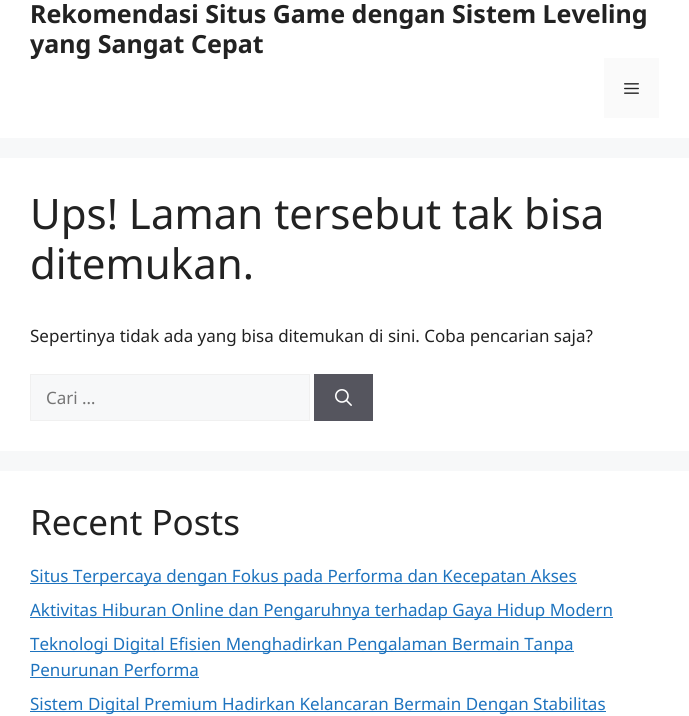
#include <cairo.h>
#include <math.h>
#include <stddef.h>


static void rgb(cairo_t *cr, int r, int g, int b)
{
	cairo_set_source_rgb(cr, r / 255.0, g / 255.0, b / 255.0);
}

static void face(cairo_t *cr, const char *family, double size, int italic, int bold)
{
	cairo_select_font_face(cr, family, italic ? CAIRO_FONT_SLANT_ITALIC : CAIRO_FONT_SLANT_NORMAL,
		bold ? CAIRO_FONT_WEIGHT_BOLD : CAIRO_FONT_WEIGHT_NORMAL);
	cairo_set_font_size(cr, size);
}

static void label(cairo_t *cr, double x, double y, const char *s)
{
	cairo_move_to(cr, x, y);
	cairo_show_text(cr, s);
}

static void rect(cairo_t *cr, double x, double y, double w, double h)
{
	cairo_rectangle(cr, x, y, w, h);
	cairo_fill(cr);
}

static void image(cairo_t *cr, const char *path, double x, double y, double w, double h)
{
	cairo_surface_t *image = cairo_image_surface_create_from_png(path);
	cairo_save(cr);
	cairo_set_source_surface(cr, image, x, y);
	cairo_rectangle(cr, x, y, w, h);
	cairo_fill(cr);
	cairo_restore(cr);
	cairo_surface_destroy(image);
}

static void draw(cairo_t *cr) {
	rgb(cr, 247, 248, 249);
	cairo_paint(cr);
	rgb(cr, 255, 255, 255);
	rect(cr, 0, 0, 689, 138);
	face(cr, "Noto Sans", 25, 0, 1);
	rgb(cr, 34, 34, 34);
	label(cr, 30, 23, "Rekomendasi Situs Game dengan Sistem Leveling");
	label(cr, 30, 53, "yang Sangat Cepat");
	rgb(cr, 250, 250, 250);
	rect(cr, 604, 58, 55, 60);
	image(cr, "image0.png", 624, 83, 15, 11);
	rgb(cr, 255, 255, 255);
	rect(cr, 0, 158, 689, 293);
	face(cr, "Noto Sans", 42, 0, 0);
	rgb(cr, 34, 34, 34);
	label(cr, 30, 229, "Ups! Laman tersebut tak bisa");
	label(cr, 30, 279, "ditemukan.");
	face(cr, "Noto Sans", 17, 0, 0);
	label(cr, 30, 342, "Sepertinya tidak ada yang bisa ditemukan di sini. Coba pencarian saja?");
	rgb(cr, 247, 248, 249);
	cairo_rectangle(cr, 30.5, 374.5, 279, 46);
	cairo_fill_preserve(cr);
	rgb(cr, 240, 240, 240);
	cairo_set_line_width(cr, 1);
	cairo_stroke(cr);
	rgb(cr, 117, 117, 117);
	label(cr, 46, 404, "Cari …");
	rgb(cr, 85, 85, 94);
	rect(cr, 314, 374, 59, 47);
	image(cr, "image1.png", 335, 389, 17, 17);
	rgb(cr, 255, 255, 255);
	rect(cr, 0, 471, 689, 245);
	face(cr, "Noto Sans", 35, 0, 0);
	rgb(cr, 34, 34, 34);
	label(cr, 30, 535, "Recent Posts");
	rgb(cr, 30, 115, 190);
	rect(cr, 30, 583, 547, 1);
	face(cr, "Noto Sans", 17, 0, 0);
	label(cr, 30, 582, "Situs Terpercaya dengan Fokus pada Performa dan Kecepatan Akses");
	rect(cr, 30, 617, 583, 1);
	label(cr, 30, 616, "Aktivitas Hiburan Online dan Pengaruhnya terhadap Gaya Hidup Modern");
	rect(cr, 30, 651, 544, 1);
	label(cr, 30, 650, "Teknologi Digital Efisien Menghadirkan Pengalaman Bermain Tanpa");
	label(cr, 30, 676, "Penurunan Performa");
	rect(cr, 30, 677, 169, 1);
	rect(cr, 30, 711, 576, 1);
	label(cr, 30, 710, "Sistem Digital Premium Hadirkan Kelancaran Bermain Dengan Stabilitas");
}

int main(void) {
	cairo_surface_t *surface = cairo_image_surface_create(CAIRO_FORMAT_RGB24, 689, 716);
	cairo_t *cr = cairo_create(surface);
	cairo_font_options_t *options = cairo_font_options_create();
	cairo_font_options_set_hint_metrics(options, CAIRO_HINT_METRICS_OFF);
	cairo_font_options_set_hint_style(options, CAIRO_HINT_STYLE_NONE);
	cairo_set_font_options(cr, options);
	cairo_set_miter_limit(cr, 4);
	draw(cr);
	cairo_surface_write_to_png(surface, "render.png");
	cairo_font_options_destroy(options);
	cairo_destroy(cr);
	cairo_surface_destroy(surface);
	return 0;
}
